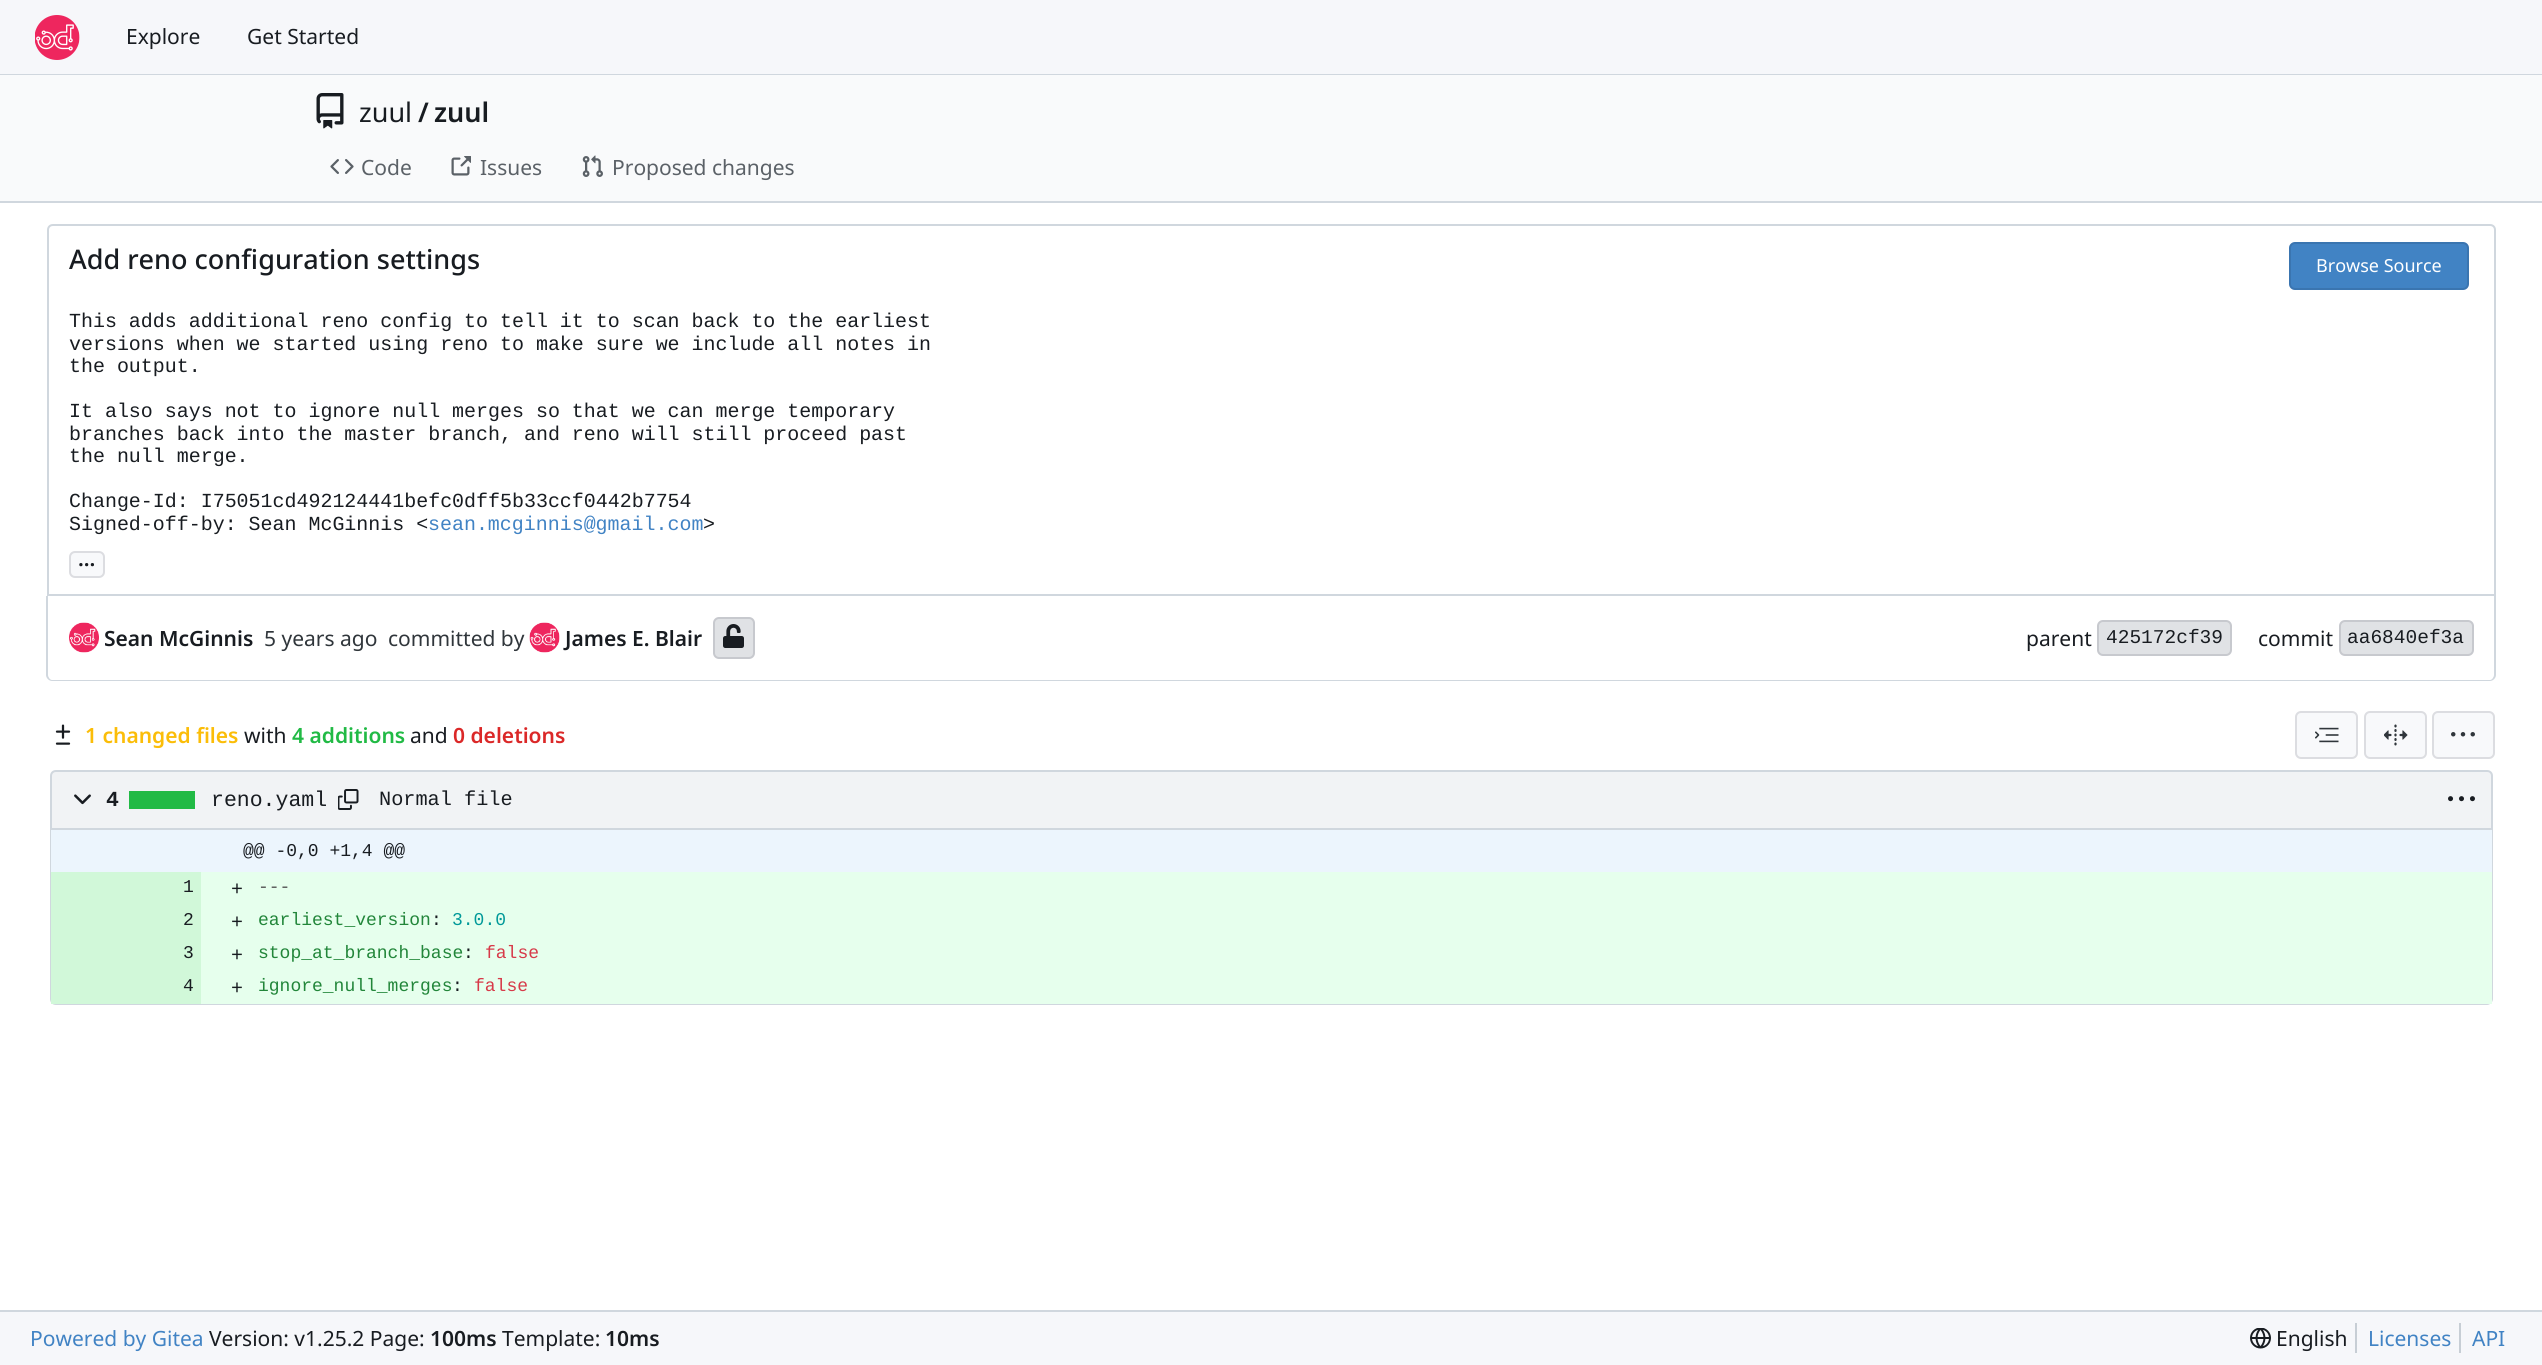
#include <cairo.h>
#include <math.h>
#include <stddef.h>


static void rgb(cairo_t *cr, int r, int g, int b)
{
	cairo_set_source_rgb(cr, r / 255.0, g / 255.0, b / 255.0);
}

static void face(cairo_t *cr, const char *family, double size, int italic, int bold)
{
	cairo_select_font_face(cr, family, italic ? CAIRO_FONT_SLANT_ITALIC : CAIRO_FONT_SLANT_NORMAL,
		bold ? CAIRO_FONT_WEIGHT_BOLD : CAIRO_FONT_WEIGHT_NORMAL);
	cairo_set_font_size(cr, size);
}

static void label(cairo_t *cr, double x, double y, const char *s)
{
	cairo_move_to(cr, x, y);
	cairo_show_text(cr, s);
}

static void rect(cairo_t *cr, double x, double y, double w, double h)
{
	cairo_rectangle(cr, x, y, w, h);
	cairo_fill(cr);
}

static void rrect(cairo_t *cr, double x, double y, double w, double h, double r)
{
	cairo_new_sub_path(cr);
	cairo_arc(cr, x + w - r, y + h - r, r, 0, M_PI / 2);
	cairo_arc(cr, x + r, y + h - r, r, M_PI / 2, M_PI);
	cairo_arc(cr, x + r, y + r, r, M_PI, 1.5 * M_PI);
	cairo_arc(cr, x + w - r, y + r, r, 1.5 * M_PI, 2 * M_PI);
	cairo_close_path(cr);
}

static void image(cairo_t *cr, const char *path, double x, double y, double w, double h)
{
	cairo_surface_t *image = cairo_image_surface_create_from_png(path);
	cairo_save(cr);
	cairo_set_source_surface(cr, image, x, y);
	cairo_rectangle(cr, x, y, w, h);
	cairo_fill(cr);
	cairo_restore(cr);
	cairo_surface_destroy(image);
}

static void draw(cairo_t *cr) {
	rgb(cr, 255, 255, 255);
	cairo_paint(cr);
	rgb(cr, 246, 247, 250);
	rect(cr, 0, 0, 2542, 74);
	rgb(cr, 208, 215, 222);
	rect(cr, 0, 74, 2542, 1);
	image(cr, "image0.png", 35, 15, 45, 45);
	face(cr, "Noto Sans", 21, 0, 0);
	rgb(cr, 24, 28, 33);
	label(cr, 126, 44, "Explore");
	label(cr, 247, 44, "Get Started");
	rgb(cr, 249, 250, 251);
	rect(cr, 0, 75, 2542, 126);
	image(cr, "image1.png", 316, 93, 28, 36);
	face(cr, "Noto Sans", 27, 0, 0);
	rgb(cr, 24, 28, 33);
	label(cr, 359, 122, "zuul");
	face(cr, "Noto Sans SemiBold", 27, 0, 0);
	label(cr, 418, 122, "/");
	label(cr, 434, 122, "zuul");
	image(cr, "image2.png", 330, 159, 24, 15);
	face(cr, "Noto Sans", 21, 0, 0);
	rgb(cr, 91, 97, 103);
	label(cr, 361, 175, "Code");
	image(cr, "image3.png", 451, 156, 20, 20);
	label(cr, 480, 175, "Issues");
	image(cr, "image4.png", 582, 155, 21, 22);
	label(cr, 612, 175, "Proposed changes");
	rgb(cr, 208, 215, 222);
	rect(cr, 0, 201, 2542, 2);
	cairo_new_path(cr);
	cairo_move_to(cr, 53, 225);
	cairo_line_to(cr, 2490, 225);
	cairo_curve_to(cr, 2493, 225, 2495, 227, 2495, 230);
	cairo_line_to(cr, 2495, 595);
	cairo_line_to(cr, 48, 595);
	cairo_line_to(cr, 48, 230);
	cairo_curve_to(cr, 48, 227, 50, 225, 53, 225);
	cairo_close_path(cr);
	cairo_stroke(cr);
	face(cr, "Noto Sans Medium", 27, 0, 0);
	rgb(cr, 24, 28, 33);
	label(cr, 69, 269, "Add reno configuration settings");
	rgb(cr, 65, 131, 196);
	rrect(cr, 2289, 242, 180, 48, 6);
	cairo_fill(cr);
	rrect(cr, 2290, 243, 178, 46, 5);
	cairo_set_source_rgba(cr, 0, 0, 0.09, 0.11);
	cairo_stroke(cr);
	face(cr, "Noto Sans", 18, 0, 0);
	rgb(cr, 255, 255, 255);
	label(cr, 2316, 272, "Browse Source");
	face(cr, "Liberation Mono", 19.95, 0, 0);
	rgb(cr, 24, 28, 33);
	label(cr, 69, 327, "This adds additional reno config to tell it to scan back to the earliest");
	label(cr, 69, 350, "versions when we started using reno to make sure we include all notes in");
	label(cr, 69, 372, "the output.");
	label(cr, 69, 417, "It also says not to ignore null merges so that we can merge temporary");
	label(cr, 69, 440, "branches back into the master branch, and reno will still proceed past");
	label(cr, 69, 462, "the null merge.");
	label(cr, 69, 507, "Change-Id: I75051cd492124441befc0dff5b33ccf0442b7754");
	label(cr, 69, 530, "Signed-off-by: Sean McGinnis <");
	rgb(cr, 65, 131, 196);
	label(cr, 428, 530, "sean.mcginnis@gmail.com");
	rgb(cr, 24, 28, 33);
	label(cr, 703, 530, ">");
	rgb(cr, 248, 249, 251);
	rrect(cr, 70, 552, 34, 25, 5);
	cairo_fill_preserve(cr);
	rgb(cr, 220, 221, 225);
	cairo_stroke(cr);
	face(cr, "Noto Sans SemiBold", 21, 0, 0);
	rgb(cr, 24, 28, 33);
	label(cr, 78, 566, "...");
	rgb(cr, 208, 215, 222);
	cairo_set_fill_rule(cr, CAIRO_FILL_RULE_EVEN_ODD);
	cairo_new_path(cr);
	cairo_move_to(cr, 46, 596);
	cairo_line_to(cr, 2496, 596);
	cairo_line_to(cr, 2496, 675);
	cairo_curve_to(cr, 2496, 678, 2493, 681, 2490, 681);
	cairo_line_to(cr, 52, 681);
	cairo_curve_to(cr, 49, 681, 46, 678, 46, 675);
	cairo_close_path(cr);
	cairo_move_to(cr, 48, 596);
	cairo_line_to(cr, 2494, 596);
	cairo_line_to(cr, 2494, 675);
	cairo_curve_to(cr, 2494, 677, 2492, 680, 2490, 680);
	cairo_line_to(cr, 52, 680);
	cairo_curve_to(cr, 50, 680, 48, 677, 48, 675);
	cairo_close_path(cr);
	cairo_fill(cr);
	image(cr, "image5.png", 69, 622, 30, 31);
	rgb(cr, 24, 28, 33);
	label(cr, 104, 646, "Sean McGinnis");
	face(cr, "Noto Sans", 21, 0, 0);
	rgb(cr, 48, 54, 59);
	label(cr, 264, 646, "5 years ago");
	label(cr, 388, 646, "committed by");
	image(cr, "image6.png", 529, 622, 31, 31);
	face(cr, "Noto Sans SemiBold", 21, 0, 0);
	rgb(cr, 24, 28, 33);
	label(cr, 565, 646, "James E. Blair");
	rgb(cr, 224, 226, 229);
	rrect(cr, 713, 617, 42, 42, 6);
	cairo_fill(cr);
	rrect(cr, 714, 618, 40, 40, 5);
	cairo_set_source_rgba(cr, 0, 0, 0.09, 0.11);
	cairo_stroke(cr);
	image(cr, "image7.png", 723, 624, 21, 24);
	face(cr, "Noto Sans", 21, 0, 0);
	rgb(cr, 24, 28, 33);
	label(cr, 2026, 646, "parent");
	rgb(cr, 224, 226, 229);
	rrect(cr, 2097, 620, 135, 36, 6);
	cairo_fill(cr);
	rrect(cr, 2098, 621, 133, 34, 5);
	cairo_set_source_rgba(cr, 0, 0, 0.09, 0.11);
	cairo_stroke(cr);
	face(cr, "Liberation Mono", 19.5, 0, 0);
	rgb(cr, 24, 28, 33);
	label(cr, 2106, 643, "425172cf39");
	face(cr, "Noto Sans", 21, 0, 0);
	label(cr, 2258, 646, "commit");
	rgb(cr, 224, 226, 229);
	rrect(cr, 2339, 620, 135, 36, 6);
	cairo_fill(cr);
	rrect(cr, 2340, 621, 133, 34, 5);
	cairo_set_source_rgba(cr, 0, 0, 0.09, 0.11);
	cairo_stroke(cr);
	face(cr, "Liberation Mono", 19.5, 0, 0);
	rgb(cr, 24, 28, 33);
	label(cr, 2347, 643, "aa6840ef3a");
	image(cr, "image8.png", 55, 724, 16, 21);
	face(cr, "Noto Sans SemiBold", 21, 0, 0);
	rgb(cr, 251, 189, 8);
	label(cr, 85, 743, "1 changed files");
	face(cr, "Noto Sans", 21, 0, 0);
	rgb(cr, 24, 28, 33);
	label(cr, 244, 743, "with");
	face(cr, "Noto Sans SemiBold", 21, 0, 0);
	rgb(cr, 33, 186, 69);
	label(cr, 292, 743, "4 additions");
	face(cr, "Noto Sans", 21, 0, 0);
	rgb(cr, 24, 28, 33);
	label(cr, 410, 743, "and");
	face(cr, "Noto Sans SemiBold", 21, 0, 0);
	rgb(cr, 219, 40, 40);
	label(cr, 453, 743, "0 deletions");
	rgb(cr, 248, 249, 251);
	rrect(cr, 2296, 712, 61, 46, 5);
	cairo_fill_preserve(cr);
	rgb(cr, 220, 221, 225);
	cairo_stroke(cr);
	image(cr, "image9.png", 2315, 727, 24, 16);
	rgb(cr, 248, 249, 251);
	rrect(cr, 2365, 712, 61, 46, 5);
	cairo_fill_preserve(cr);
	rgb(cr, 220, 221, 225);
	cairo_stroke(cr);
	image(cr, "image10.png", 2384, 724, 24, 22);
	rgb(cr, 248, 249, 251);
	rrect(cr, 2433, 712, 61, 46, 5);
	cairo_fill_preserve(cr);
	rgb(cr, 220, 221, 225);
	cairo_stroke(cr);
	image(cr, "image11.png", 2451, 732, 24, 5);
	rgb(cr, 241, 243, 245);
	cairo_new_path(cr);
	cairo_move_to(cr, 56, 771);
	cairo_line_to(cr, 2487, 771);
	cairo_curve_to(cr, 2490, 771, 2492, 773, 2492, 776);
	cairo_line_to(cr, 2492, 829);
	cairo_line_to(cr, 51, 829);
	cairo_line_to(cr, 51, 776);
	cairo_curve_to(cr, 51, 773, 53, 771, 56, 771);
	cairo_close_path(cr);
	cairo_fill_preserve(cr);
	rgb(cr, 208, 215, 222);
	cairo_stroke(cr);
	image(cr, "image12.png", 74, 794, 17, 11);
	face(cr, "Liberation Mono", 21.5, 0, 1);
	rgb(cr, 24, 28, 33);
	label(cr, 106, 806, "4");
	rgb(cr, 33, 186, 69);
	rect(cr, 129, 791, 66, 18);
	face(cr, "Liberation Mono", 21.5, 0, 0);
	rgb(cr, 24, 28, 33);
	label(cr, 211, 806, "reno.yaml");
	image(cr, "image13.png", 338, 789, 21, 21);
	face(cr, "Liberation Mono", 20.25, 0, 0);
	label(cr, 379, 805, "Normal file");
	image(cr, "image14.png", 2448, 796, 27, 6);
	rgb(cr, 208, 215, 222);
	cairo_new_path(cr);
	cairo_move_to(cr, 50, 830);
	cairo_line_to(cr, 2493, 830);
	cairo_line_to(cr, 2493, 999);
	cairo_curve_to(cr, 2493, 1002, 2490, 1005, 2487, 1005);
	cairo_line_to(cr, 56, 1005);
	cairo_curve_to(cr, 52, 1005, 50, 1002, 50, 999);
	cairo_close_path(cr);
	cairo_move_to(cr, 51, 830);
	cairo_line_to(cr, 2492, 830);
	cairo_line_to(cr, 2492, 999);
	cairo_curve_to(cr, 2492, 1001, 2489, 1004, 2487, 1004);
	cairo_line_to(cr, 56, 1004);
	cairo_curve_to(cr, 53, 1004, 51, 1001, 51, 999);
	cairo_close_path(cr);
	cairo_fill(cr);
	rgb(cr, 236, 245, 253);
	rect(cr, 51, 830, 2441, 42);
	face(cr, "Liberation Mono", 18, 0, 0);
	rgb(cr, 24, 28, 33);
	label(cr, 243, 856, "@@ -0,0 +1,4 @@");
	rgb(cr, 230, 255, 237);
	rect(cr, 201, 872, 2291, 132);
	rgb(cr, 209, 248, 217);
	rect(cr, 51, 872, 150, 33);
	rgb(cr, 24, 28, 33);
	label(cr, 183, 892, "1");
	face(cr, "Liberation Mono", 19.95, 0, 0);
	label(cr, 231, 895, "+");
	face(cr, "Liberation Mono", 18, 0, 0);
	rgb(cr, 85, 85, 85);
	label(cr, 258, 892, "---");
	rgb(cr, 209, 248, 217);
	rect(cr, 51, 905, 150, 33);
	rgb(cr, 34, 134, 58);
	label(cr, 258, 925, "earliest_version");
	rgb(cr, 24, 28, 33);
	label(cr, 431, 925, ":");
	rgb(cr, 0, 153, 153);
	label(cr, 452, 925, "3.0.0");
	rgb(cr, 24, 28, 33);
	label(cr, 183, 925, "2");
	face(cr, "Liberation Mono", 19.95, 0, 0);
	label(cr, 231, 928, "+");
	rgb(cr, 209, 248, 217);
	rect(cr, 51, 938, 150, 33);
	face(cr, "Liberation Mono", 18, 0, 0);
	rgb(cr, 34, 134, 58);
	label(cr, 258, 958, "stop_at_branch_base");
	rgb(cr, 24, 28, 33);
	label(cr, 463, 958, ":");
	rgb(cr, 215, 58, 73);
	label(cr, 485, 958, "false");
	rgb(cr, 24, 28, 33);
	label(cr, 183, 958, "3");
	face(cr, "Liberation Mono", 19.95, 0, 0);
	label(cr, 231, 961, "+");
	rgb(cr, 209, 248, 217);
	rect(cr, 51, 971, 150, 33);
	face(cr, "Liberation Mono", 18, 0, 0);
	rgb(cr, 34, 134, 58);
	label(cr, 258, 991, "ignore_null_merges");
	rgb(cr, 24, 28, 33);
	label(cr, 452, 991, ":");
	rgb(cr, 215, 58, 73);
	label(cr, 474, 991, "false");
	rgb(cr, 24, 28, 33);
	label(cr, 183, 991, "4");
	face(cr, "Liberation Mono", 19.95, 0, 0);
	label(cr, 231, 994, "+");
	rgb(cr, 246, 247, 250);
	rect(cr, 0, 1312, 2542, 53);
	rgb(cr, 208, 215, 222);
	rect(cr, 0, 1310, 2542, 2);
	face(cr, "Noto Sans", 21, 0, 0);
	rgb(cr, 65, 131, 196);
	label(cr, 30, 1346, "Powered by Gitea");
	rgb(cr, 24, 28, 33);
	label(cr, 209, 1346, "Version: v1.25.2 Page:");
	face(cr, "Noto Sans SemiBold", 21, 0, 0);
	label(cr, 430, 1346, "100ms");
	face(cr, "Noto Sans", 21, 0, 0);
	label(cr, 502, 1346, "Template:");
	face(cr, "Noto Sans SemiBold", 21, 0, 0);
	label(cr, 605, 1346, "10ms");
	image(cr, "image15.png", 2250, 1328, 21, 21);
	face(cr, "Noto Sans", 21, 0, 0);
	label(cr, 2276, 1346, "English");
	rgb(cr, 199, 206, 213);
	rect(cr, 2355, 1323, 2, 30);
	rgb(cr, 65, 131, 196);
	label(cr, 2368, 1346, "Licenses");
	rgb(cr, 199, 206, 213);
	rect(cr, 2459, 1323, 2, 30);
	rgb(cr, 65, 131, 196);
	label(cr, 2472, 1346, "API");
}

int main(void) {
	cairo_surface_t *surface = cairo_image_surface_create(CAIRO_FORMAT_RGB24, 2542, 1365);
	cairo_t *cr = cairo_create(surface);
	cairo_font_options_t *options = cairo_font_options_create();
	cairo_font_options_set_hint_metrics(options, CAIRO_HINT_METRICS_OFF);
	cairo_font_options_set_hint_style(options, CAIRO_HINT_STYLE_NONE);
	cairo_set_font_options(cr, options);
	cairo_set_miter_limit(cr, 4);
	draw(cr);
	cairo_surface_write_to_png(surface, "render.png");
	cairo_font_options_destroy(options);
	cairo_destroy(cr);
	cairo_surface_destroy(surface);
	return 0;
}
